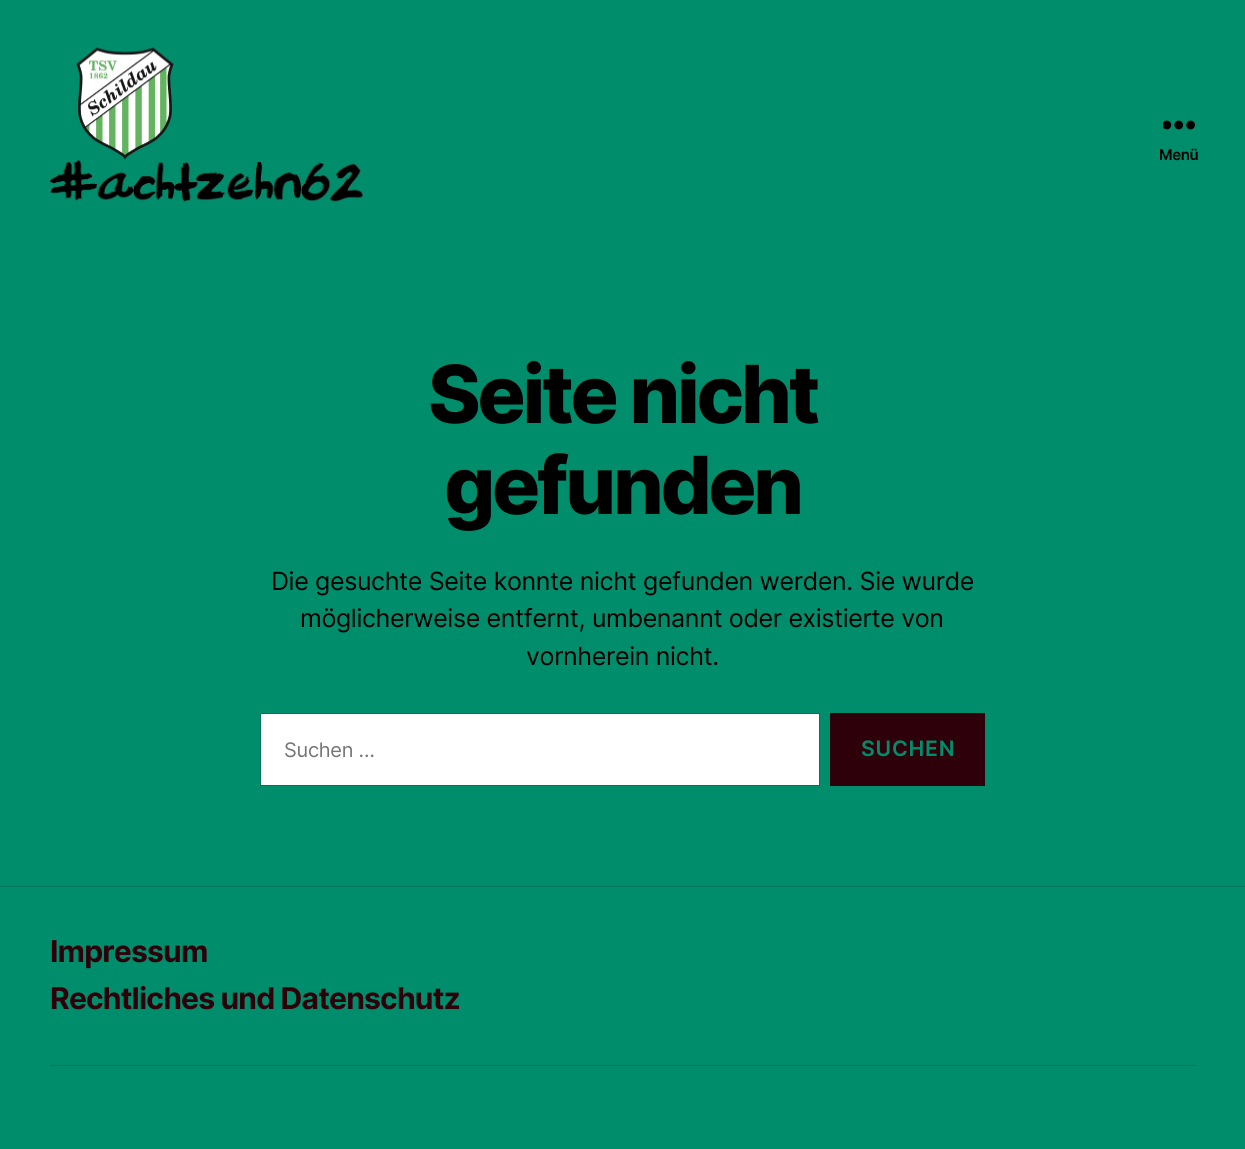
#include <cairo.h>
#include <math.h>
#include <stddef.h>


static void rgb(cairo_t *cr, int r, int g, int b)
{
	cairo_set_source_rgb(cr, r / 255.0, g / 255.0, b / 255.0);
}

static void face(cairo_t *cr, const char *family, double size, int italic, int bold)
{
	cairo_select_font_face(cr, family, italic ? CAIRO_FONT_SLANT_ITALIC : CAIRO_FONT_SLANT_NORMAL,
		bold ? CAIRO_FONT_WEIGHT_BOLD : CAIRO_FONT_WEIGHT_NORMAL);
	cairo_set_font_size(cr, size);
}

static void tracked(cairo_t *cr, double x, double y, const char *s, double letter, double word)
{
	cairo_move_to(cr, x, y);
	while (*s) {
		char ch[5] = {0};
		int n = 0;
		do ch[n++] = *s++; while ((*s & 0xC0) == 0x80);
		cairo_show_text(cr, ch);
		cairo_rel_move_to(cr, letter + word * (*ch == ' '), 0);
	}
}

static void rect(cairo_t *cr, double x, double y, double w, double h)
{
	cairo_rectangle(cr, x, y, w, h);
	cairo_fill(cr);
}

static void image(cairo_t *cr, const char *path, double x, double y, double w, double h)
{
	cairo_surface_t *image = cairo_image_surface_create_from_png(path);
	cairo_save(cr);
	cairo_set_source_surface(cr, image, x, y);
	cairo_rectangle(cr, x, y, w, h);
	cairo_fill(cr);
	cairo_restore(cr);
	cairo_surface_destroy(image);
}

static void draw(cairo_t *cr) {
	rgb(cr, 0, 141, 107);
	cairo_paint(cr);
	image(cr, "image0.png", 76, 47, 98, 113);
	image(cr, "image1.png", 50, 160, 313, 42);
	image(cr, "image2.png", 1163, 120, 32, 10);
	face(cr, "Inter SemiBold", 15, 0, 0);
	rgb(cr, 0, 0, 0);
	tracked(cr, 1159, 160, "Menü", -0.35, 0);
	face(cr, "Inter ExtraBold", 80, 0, 0);
	tracked(cr, 428, 423, "Seite nicht", -3.25, 0);
	tracked(cr, 444, 514, "gefunden", -3.25, 0);
	face(cr, "Inter", 25, 0, 0);
	tracked(cr, 271, 590, "Die gesuchte Seite konnte nicht gefunden werden. Sie wurde", -0.35, 0);
	tracked(cr, 300, 627, "möglicherweise entfernt, umbenannt oder existierte von", -0.35, 0);
	tracked(cr, 526, 665, "vornherein nicht.", -0.35, 0);
	rgb(cr, 255, 255, 255);
	cairo_rectangle(cr, 260.5, 713.5, 559, 72);
	cairo_fill_preserve(cr);
	rgb(cr, 0, 117, 89);
	cairo_set_line_width(cr, 1);
	cairo_stroke(cr);
	face(cr, "Inter", 20, 0, 0);
	rgb(cr, 117, 117, 117);
	tracked(cr, 284, 757, "Suchen …", -0.25, 0);
	rgb(cr, 45, 0, 10);
	rect(cr, 830, 713, 155, 73);
	face(cr, "Inter SemiBold", 21.25, 0, 0);
	rgb(cr, 0, 141, 107);
	tracked(cr, 861, 756, "SUCHEN", 0.75, 0);
	rgb(cr, 0, 117, 89);
	rect(cr, 0, 886, 1245, 1);
	rect(cr, 50, 1065, 1145, 1);
	face(cr, "Inter", 30, 0, 1);
	rgb(cr, 45, 0, 10);
	tracked(cr, 50, 962, "Impressum", -0.8, 0);
	tracked(cr, 50, 1009, "Rechtliches und Datenschutz", -0.8, 0);
}

int main(void) {
	cairo_surface_t *surface = cairo_image_surface_create(CAIRO_FORMAT_RGB24, 1245, 1149);
	cairo_t *cr = cairo_create(surface);
	cairo_font_options_t *options = cairo_font_options_create();
	cairo_font_options_set_hint_metrics(options, CAIRO_HINT_METRICS_OFF);
	cairo_font_options_set_hint_style(options, CAIRO_HINT_STYLE_NONE);
	cairo_set_font_options(cr, options);
	cairo_set_miter_limit(cr, 4);
	draw(cr);
	cairo_surface_write_to_png(surface, "render.png");
	cairo_font_options_destroy(options);
	cairo_destroy(cr);
	cairo_surface_destroy(surface);
	return 0;
}
